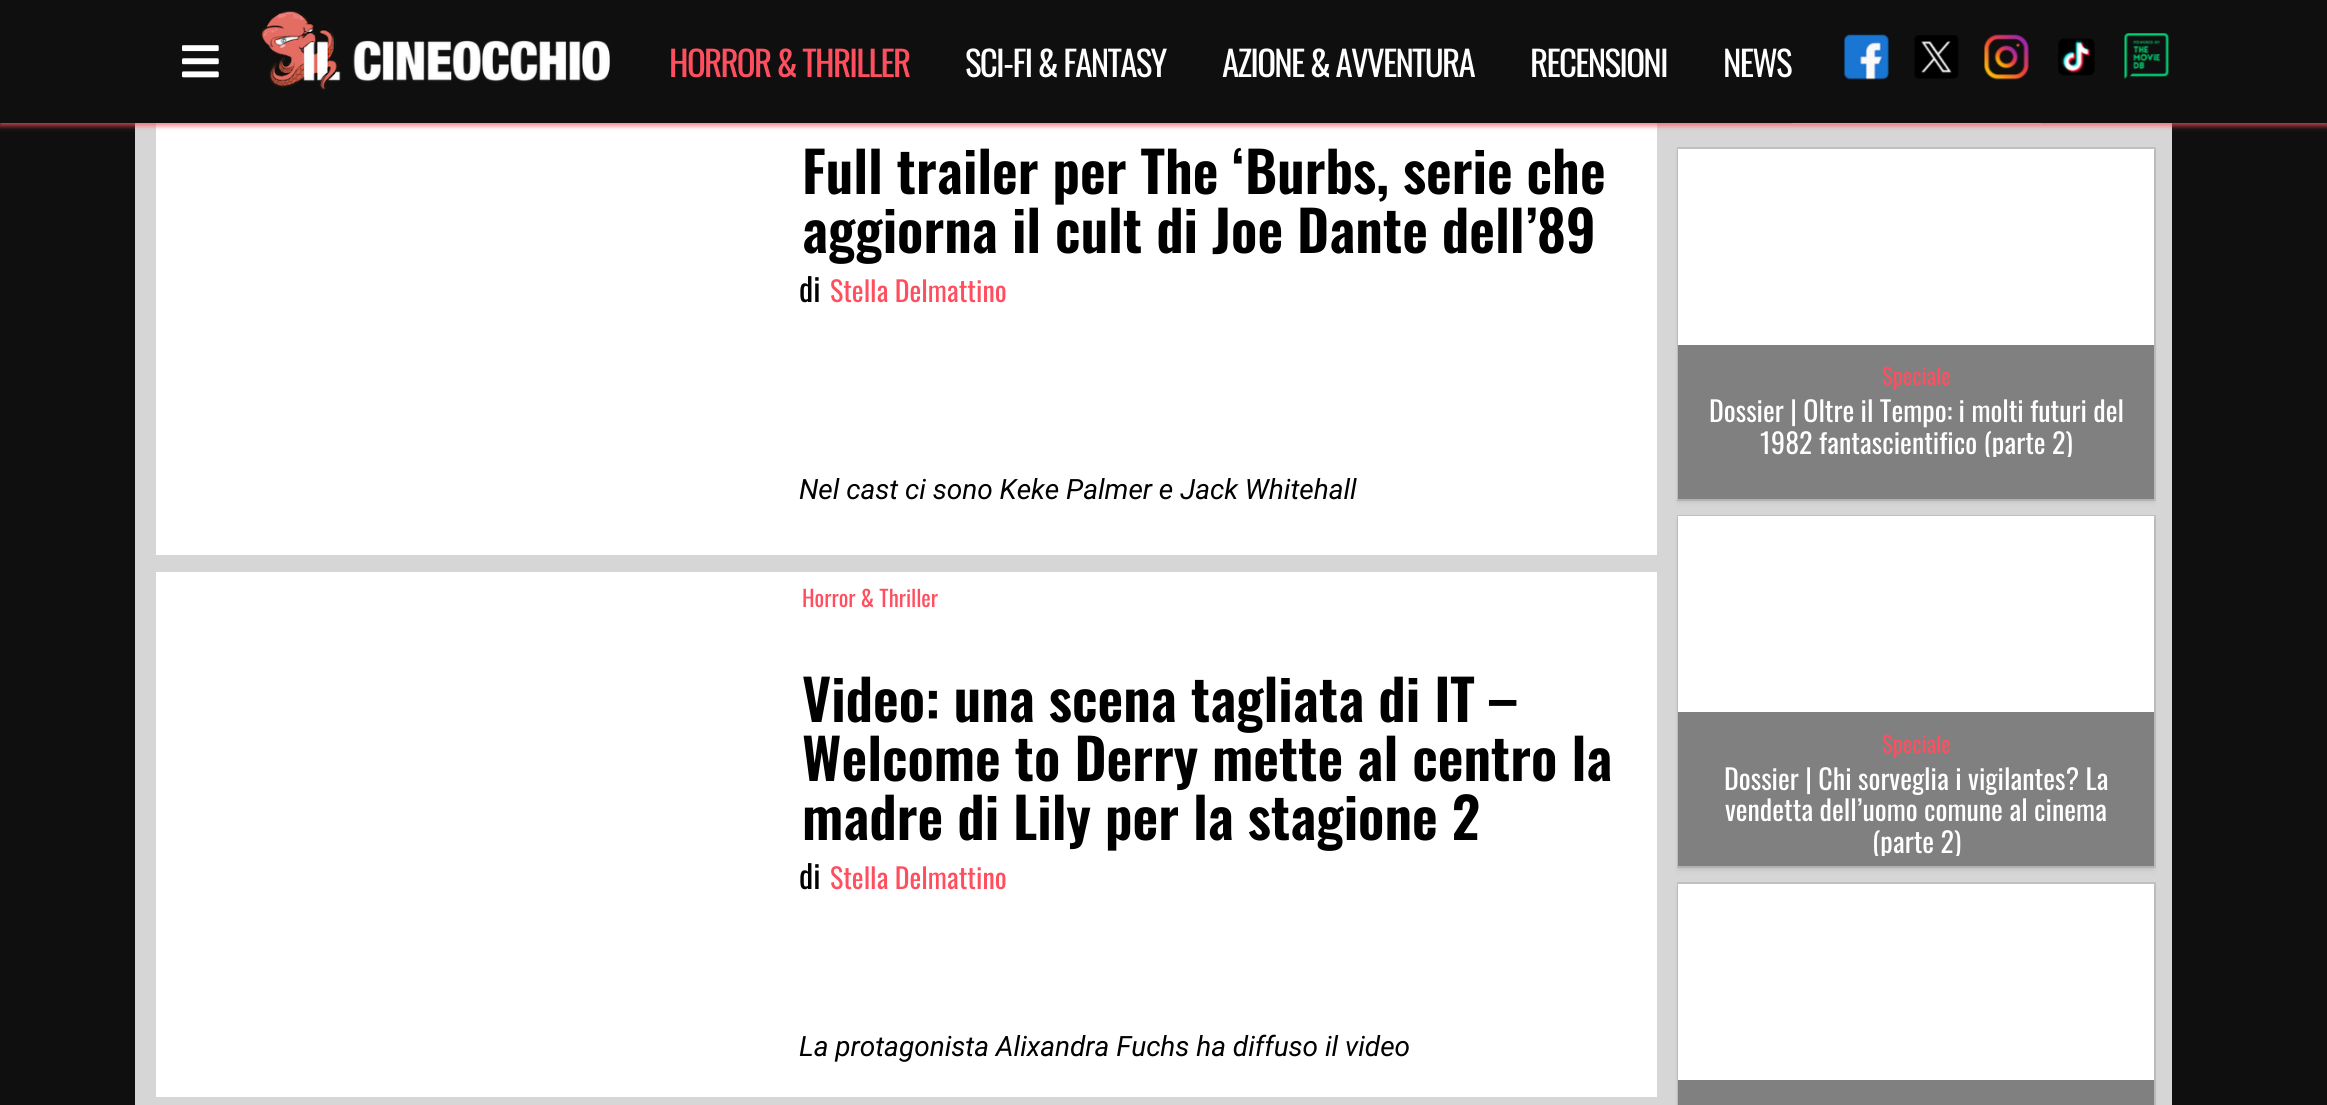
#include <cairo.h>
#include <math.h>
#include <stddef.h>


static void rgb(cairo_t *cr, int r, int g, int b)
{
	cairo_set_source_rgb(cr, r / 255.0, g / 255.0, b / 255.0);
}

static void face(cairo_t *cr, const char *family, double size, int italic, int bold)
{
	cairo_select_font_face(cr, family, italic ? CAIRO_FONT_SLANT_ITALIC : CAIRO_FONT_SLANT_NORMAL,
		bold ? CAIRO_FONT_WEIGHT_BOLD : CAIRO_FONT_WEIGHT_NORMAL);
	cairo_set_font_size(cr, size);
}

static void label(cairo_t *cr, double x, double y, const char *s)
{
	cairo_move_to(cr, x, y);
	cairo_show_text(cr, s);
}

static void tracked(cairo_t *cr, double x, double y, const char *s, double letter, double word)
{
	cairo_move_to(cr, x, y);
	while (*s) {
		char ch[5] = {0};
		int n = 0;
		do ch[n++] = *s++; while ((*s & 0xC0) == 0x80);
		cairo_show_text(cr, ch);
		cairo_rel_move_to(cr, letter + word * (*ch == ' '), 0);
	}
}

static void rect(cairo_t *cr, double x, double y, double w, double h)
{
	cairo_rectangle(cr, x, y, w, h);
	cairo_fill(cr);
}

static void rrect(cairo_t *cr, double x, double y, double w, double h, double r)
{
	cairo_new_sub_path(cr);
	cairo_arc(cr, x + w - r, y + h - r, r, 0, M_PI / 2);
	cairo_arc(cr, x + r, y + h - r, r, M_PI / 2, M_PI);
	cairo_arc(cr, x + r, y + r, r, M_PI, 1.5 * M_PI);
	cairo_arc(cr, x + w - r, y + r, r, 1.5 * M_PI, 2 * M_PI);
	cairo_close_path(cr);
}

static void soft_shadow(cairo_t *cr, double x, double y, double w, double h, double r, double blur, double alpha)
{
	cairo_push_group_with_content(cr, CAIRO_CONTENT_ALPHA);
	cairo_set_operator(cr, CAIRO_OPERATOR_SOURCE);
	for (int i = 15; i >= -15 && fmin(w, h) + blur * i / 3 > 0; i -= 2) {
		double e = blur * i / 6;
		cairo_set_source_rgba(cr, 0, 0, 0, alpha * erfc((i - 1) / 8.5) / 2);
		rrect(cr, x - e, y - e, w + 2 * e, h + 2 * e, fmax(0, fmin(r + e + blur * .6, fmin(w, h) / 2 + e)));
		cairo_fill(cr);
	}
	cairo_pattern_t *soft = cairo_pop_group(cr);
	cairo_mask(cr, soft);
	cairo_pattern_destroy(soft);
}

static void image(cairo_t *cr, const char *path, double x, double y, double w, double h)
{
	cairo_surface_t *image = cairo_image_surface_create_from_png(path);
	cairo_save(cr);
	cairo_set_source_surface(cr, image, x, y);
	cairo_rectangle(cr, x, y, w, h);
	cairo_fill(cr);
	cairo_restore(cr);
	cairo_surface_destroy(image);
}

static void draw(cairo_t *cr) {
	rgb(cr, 15, 15, 15);
	cairo_paint(cr);
	rgb(cr, 214, 214, 214);
	rect(cr, 135, 123, 2037, 982);
	rgb(cr, 255, 255, 255);
	rect(cr, 156, 123, 1501, 432);
	rect(cr, 1792, 123, 249, 1);
	rgb(cr, 255, 79, 95);
	soft_shadow(cr, 0, 4, 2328, 122, 0, 2.5, 0.75);
	rgb(cr, 15, 15, 15);
	rect(cr, 0, 0, 2327, 123);
	image(cr, "image0.png", 182, 45, 37, 33);
	image(cr, "image1.png", 260, 10, 350, 81);
	face(cr, "Oswald", 35, 0, 0);
	rgb(cr, 255, 79, 95);
	tracked(cr, 669, 77, "HORROR & THRILLER", -1.75, 0);
	rgb(cr, 255, 255, 255);
	tracked(cr, 965, 77, "SCI-FI & FANTASY", -1.75, 0);
	tracked(cr, 1222, 77, "AZIONE & AVVENTURA", -1.75, 0);
	tracked(cr, 1530, 77, "RECENSIONI", -1.75, 0);
	tracked(cr, 1723, 77, "NEWS", -1.75, 0);
	image(cr, "image2.png", 1844, 34, 45, 46);
	image(cr, "image3.png", 1914, 35, 45, 44);
	image(cr, "image4.png", 1984, 34, 45, 46);
	image(cr, "image5.png", 2058, 38, 37, 38);
	image(cr, "image6.png", 2124, 33, 45, 47);
	face(cr, "Oswald SemiBold", 56, 0, 0);
	rgb(cr, 0, 0, 0);
	label(cr, 802, 194, "Full trailer per The ‘Burbs, serie che");
	label(cr, 802, 253, "aggiorna il cult di Joe Dante dell’89");
	face(cr, "Oswald", 32, 0, 0);
	label(cr, 799, 302, "di");
	face(cr, "Oswald", 28, 0, 0);
	rgb(cr, 255, 79, 95);
	label(cr, 830, 302, "Stella Delmattino");
	face(cr, "Roboto", 28, 1, 0);
	rgb(cr, 0, 0, 0);
	label(cr, 799, 499, "Nel cast ci sono Keke Palmer e Jack Whitehall");
	rgb(cr, 255, 255, 255);
	rect(cr, 156, 572, 1501, 525);
	face(cr, "Oswald", 22.5, 0, 0);
	rgb(cr, 255, 79, 95);
	label(cr, 802, 607, "Horror & Thriller");
	face(cr, "Oswald SemiBold", 56, 0, 0);
	rgb(cr, 0, 0, 0);
	label(cr, 802, 722, "Video: una scena tagliata di IT –");
	label(cr, 802, 781, "Welcome to Derry mette al centro la");
	label(cr, 802, 840, "madre di Lily per la stagione 2");
	face(cr, "Oswald", 32, 0, 0);
	label(cr, 799, 889, "di");
	face(cr, "Oswald", 28, 0, 0);
	rgb(cr, 255, 79, 95);
	label(cr, 830, 889, "Stella Delmattino");
	face(cr, "Roboto", 28, 1, 0);
	rgb(cr, 0, 0, 0);
	label(cr, 799, 1056, "La protagonista Alixandra Fuchs ha diffuso il video");
	cairo_rectangle(cr, 1678, 148, 477, 352);
	rgb(cr, 193, 193, 193);
	cairo_stroke(cr);
	rgb(cr, 0, 0, 0);
	soft_shadow(cr, 1678, 152, 476, 350, 0, 2.5, 0.1);
	rgb(cr, 255, 255, 255);
	rect(cr, 1678, 149, 476, 196);
	rgb(cr, 128, 128, 128);
	rect(cr, 1678, 345, 476, 154);
	face(cr, "Oswald", 22.5, 0, 0);
	rgb(cr, 255, 79, 95);
	label(cr, 1882, 385, "Speciale");
	face(cr, "Oswald", 28, 0, 0);
	rgb(cr, 255, 255, 255);
	label(cr, 1709, 422, "Dossier | Oltre il Tempo: i molti futuri del");
	cairo_save(cr);
	cairo_rectangle(cr, 1706, 394, 420, 63);
	cairo_clip(cr);
	label(cr, 1760, 454, "1982 fantascientifico (parte 2)");
	cairo_restore(cr);
	cairo_rectangle(cr, 1678, 516, 477, 351);
	rgb(cr, 193, 193, 193);
	cairo_stroke(cr);
	rgb(cr, 0, 0, 0);
	soft_shadow(cr, 1678, 520, 476, 350, 0, 2.5, 0.1);
	rgb(cr, 255, 255, 255);
	rect(cr, 1678, 516, 476, 196);
	rgb(cr, 128, 128, 128);
	rect(cr, 1678, 712, 476, 154);
	face(cr, "Oswald", 22.5, 0, 0);
	rgb(cr, 255, 79, 95);
	label(cr, 1882, 753, "Speciale");
	face(cr, "Oswald", 28, 0, 0);
	rgb(cr, 255, 255, 255);
	label(cr, 1724, 790, "Dossier | Chi sorveglia i vigilantes? La");
	label(cr, 1725, 821, "vendetta dell’uomo comune al cinema");
	cairo_save(cr);
	cairo_rectangle(cr, 1706, 761, 420, 95);
	cairo_clip(cr);
	label(cr, 1872, 853, "(parte 2)");
	cairo_restore(cr);
	cairo_rectangle(cr, 1678, 883, 477, 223);
	rgb(cr, 193, 193, 193);
	cairo_stroke(cr);
	rgb(cr, 0, 0, 0);
	soft_shadow(cr, 1678, 887, 476, 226, 0, 2.5, 0.1);
	rgb(cr, 255, 255, 255);
	rect(cr, 1678, 884, 476, 196);
	rgb(cr, 128, 128, 128);
	rect(cr, 1678, 1080, 476, 25);
}

int main(void) {
	cairo_surface_t *surface = cairo_image_surface_create(CAIRO_FORMAT_RGB24, 2327, 1105);
	cairo_t *cr = cairo_create(surface);
	cairo_font_options_t *options = cairo_font_options_create();
	cairo_font_options_set_hint_metrics(options, CAIRO_HINT_METRICS_OFF);
	cairo_font_options_set_hint_style(options, CAIRO_HINT_STYLE_NONE);
	cairo_set_font_options(cr, options);
	cairo_set_miter_limit(cr, 4);
	draw(cr);
	cairo_surface_write_to_png(surface, "render.png");
	cairo_font_options_destroy(options);
	cairo_destroy(cr);
	cairo_surface_destroy(surface);
	return 0;
}
